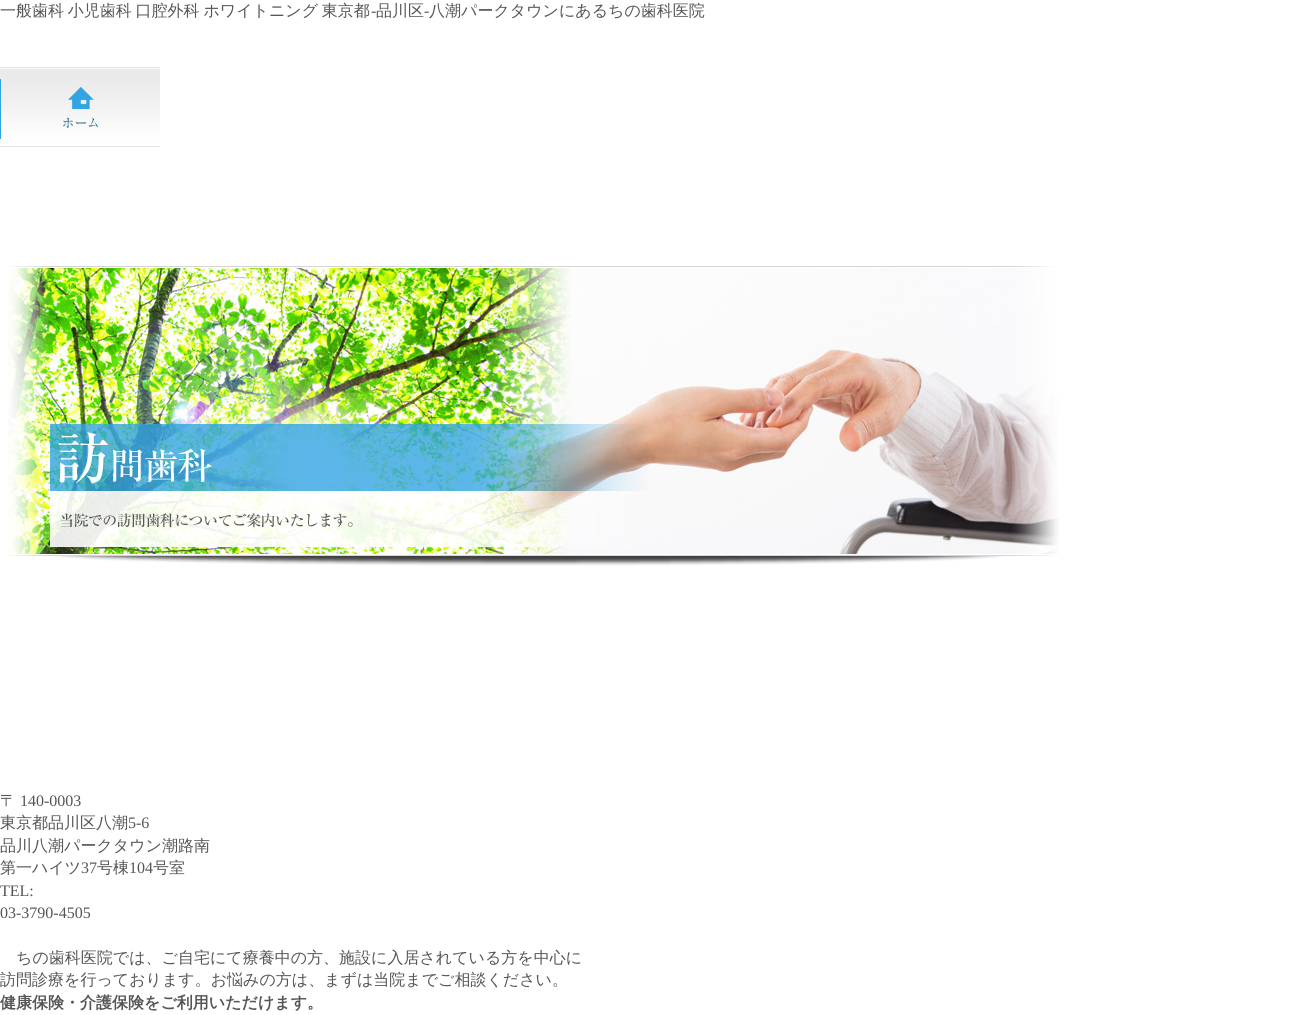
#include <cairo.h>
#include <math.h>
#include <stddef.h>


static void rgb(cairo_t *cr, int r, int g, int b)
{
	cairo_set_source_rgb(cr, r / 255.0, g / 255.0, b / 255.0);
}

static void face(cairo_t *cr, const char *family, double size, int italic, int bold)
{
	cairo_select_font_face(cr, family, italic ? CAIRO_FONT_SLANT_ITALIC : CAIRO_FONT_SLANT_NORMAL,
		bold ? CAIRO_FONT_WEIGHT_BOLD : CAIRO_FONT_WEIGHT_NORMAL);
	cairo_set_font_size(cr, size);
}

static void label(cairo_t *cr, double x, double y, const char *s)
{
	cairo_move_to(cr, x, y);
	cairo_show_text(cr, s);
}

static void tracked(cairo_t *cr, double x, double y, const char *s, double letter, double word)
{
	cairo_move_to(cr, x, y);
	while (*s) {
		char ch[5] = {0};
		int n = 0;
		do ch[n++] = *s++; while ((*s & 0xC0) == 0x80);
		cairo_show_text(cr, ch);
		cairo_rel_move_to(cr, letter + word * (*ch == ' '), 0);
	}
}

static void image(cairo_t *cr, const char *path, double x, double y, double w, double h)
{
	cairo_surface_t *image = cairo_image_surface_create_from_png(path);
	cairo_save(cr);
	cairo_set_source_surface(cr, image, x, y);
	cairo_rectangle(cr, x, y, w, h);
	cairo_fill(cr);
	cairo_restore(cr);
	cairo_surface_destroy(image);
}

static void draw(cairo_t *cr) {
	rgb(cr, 255, 255, 255);
	cairo_paint(cr);
	face(cr, "WenQuanYi Zen Hei Medium", 16, 0, 0);
	rgb(cr, 85, 85, 85);
	tracked(cr, 0, 16, "一般歯科 小児歯科 口腔外科 ホワイトニング 東京都", 0, -1);
	face(cr, "Liberation Serif", 16, 0, 0);
	label(cr, 371, 16, "-");
	face(cr, "WenQuanYi Zen Hei Medium", 16, 0, 0);
	label(cr, 376, 16, "品川区");
	face(cr, "Liberation Serif", 16, 0, 0);
	label(cr, 424, 16, "-");
	face(cr, "WenQuanYi Zen Hei Medium", 16, 0, 0);
	label(cr, 429, 16, "八潮パークタウンにあるちの歯科医院");
	image(cr, "image0.png", 0, 67, 160, 80);
	image(cr, "image1.png", 8, 266, 1051, 300);
	label(cr, 0, 806, "〒");
	face(cr, "Liberation Serif", 16, 0, 0);
	label(cr, 20, 806, "140-0003");
	face(cr, "WenQuanYi Zen Hei Medium", 16, 0, 0);
	label(cr, 0, 828, "東京都品川区八潮");
	face(cr, "Liberation Serif", 16, 0, 0);
	label(cr, 128, 828, "5-6");
	face(cr, "WenQuanYi Zen Hei Medium", 16, 0, 0);
	label(cr, 0, 851, "品川八潮パークタウン潮路南");
	label(cr, 0, 873, "第一ハイツ");
	face(cr, "Liberation Serif", 16, 0, 0);
	label(cr, 81, 873, "37");
	face(cr, "WenQuanYi Zen Hei Medium", 16, 0, 0);
	label(cr, 97, 873, "号棟");
	face(cr, "Liberation Serif", 16, 0, 0);
	label(cr, 129, 873, "104");
	face(cr, "WenQuanYi Zen Hei Medium", 16, 0, 0);
	label(cr, 153, 873, "号室");
	face(cr, "Liberation Serif", 16, 0, 0);
	label(cr, 0, 896, "TEL:");
	label(cr, 0, 918, "03-3790-4505");
	face(cr, "WenQuanYi Zen Hei Medium", 16, 0, 0);
	label(cr, 16, 963, "ちの歯科医院では、ご自宅にて療養中の方、施設に入居されている方を中心に");
	label(cr, 0, 985, "訪問診療を行っております。お悩みの方は、まずは当院までご相談ください。");
	face(cr, "WenQuanYi Zen Hei", 16, 0, 1);
	label(cr, 0, 1008, "健康保険・介護保険をご利用いただけます。");
}

int main(void) {
	cairo_surface_t *surface = cairo_image_surface_create(CAIRO_FORMAT_RGB24, 1305, 1015);
	cairo_t *cr = cairo_create(surface);
	cairo_font_options_t *options = cairo_font_options_create();
	cairo_font_options_set_hint_metrics(options, CAIRO_HINT_METRICS_OFF);
	cairo_font_options_set_hint_style(options, CAIRO_HINT_STYLE_NONE);
	cairo_set_font_options(cr, options);
	cairo_set_miter_limit(cr, 4);
	draw(cr);
	cairo_surface_write_to_png(surface, "render.png");
	cairo_font_options_destroy(options);
	cairo_destroy(cr);
	cairo_surface_destroy(surface);
	return 0;
}
